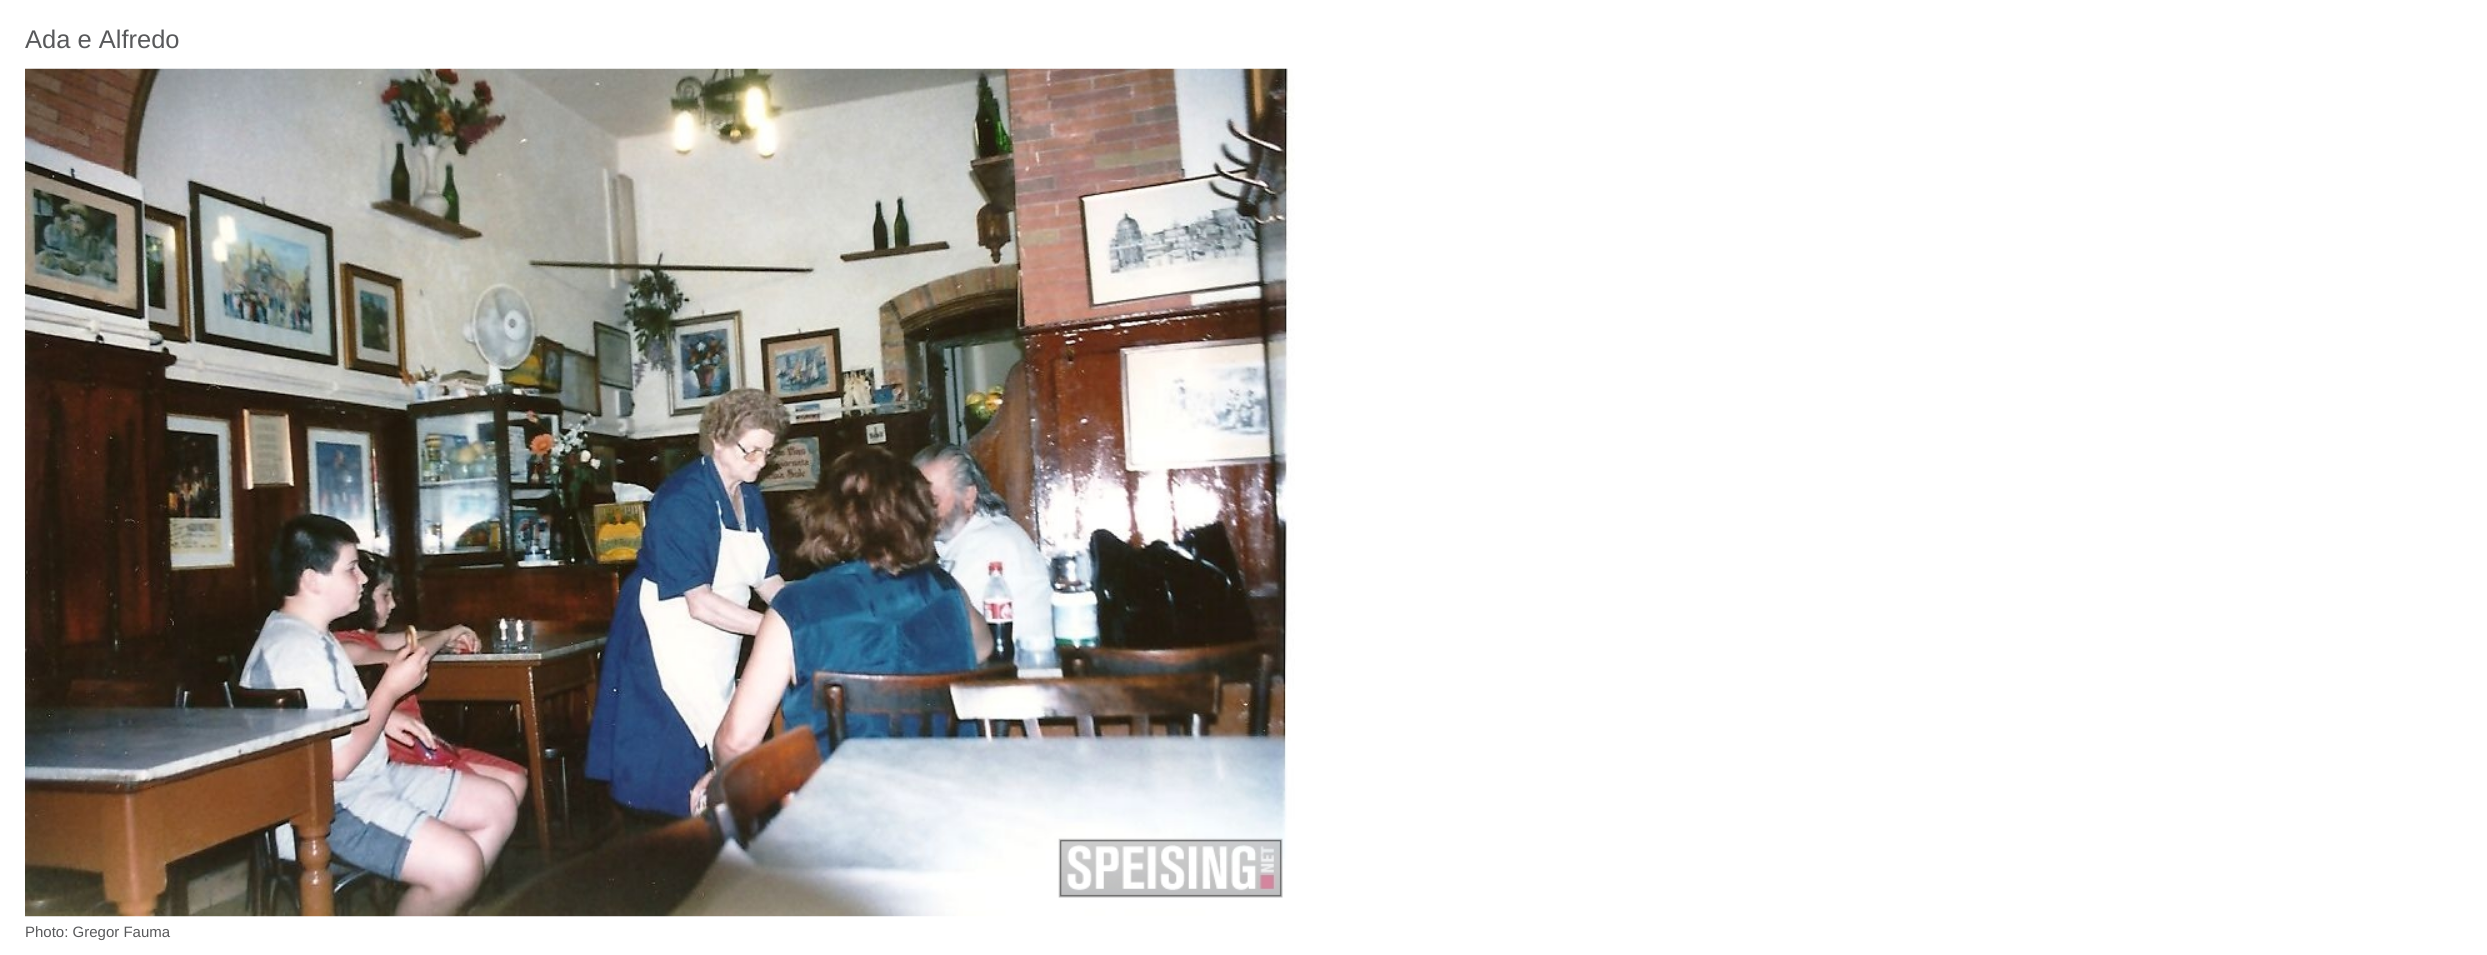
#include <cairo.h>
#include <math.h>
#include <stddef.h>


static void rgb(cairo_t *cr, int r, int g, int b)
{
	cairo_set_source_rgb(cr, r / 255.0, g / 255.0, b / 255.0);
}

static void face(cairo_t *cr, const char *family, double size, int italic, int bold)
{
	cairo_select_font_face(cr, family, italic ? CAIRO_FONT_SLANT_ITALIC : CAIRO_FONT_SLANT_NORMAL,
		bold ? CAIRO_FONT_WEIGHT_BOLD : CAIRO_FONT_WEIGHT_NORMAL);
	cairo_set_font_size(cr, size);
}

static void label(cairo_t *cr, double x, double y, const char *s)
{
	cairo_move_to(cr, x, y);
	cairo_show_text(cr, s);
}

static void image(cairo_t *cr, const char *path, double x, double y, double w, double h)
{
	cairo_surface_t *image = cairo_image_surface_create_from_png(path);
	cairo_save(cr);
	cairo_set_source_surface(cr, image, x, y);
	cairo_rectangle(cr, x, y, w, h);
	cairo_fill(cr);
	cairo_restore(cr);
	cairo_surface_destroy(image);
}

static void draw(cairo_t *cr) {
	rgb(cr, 255, 255, 255);
	cairo_paint(cr);
	face(cr, "Liberation Sans", 25.5, 0, 0);
	rgb(cr, 88, 89, 91);
	label(cr, 25, 48, "Ada e Alfredo");
	image(cr, "image0.png", 25, 68, 1270, 849);
	face(cr, "Liberation Sans", 15, 0, 0);
	label(cr, 25, 937, "Photo: Gregor Fauma");
}

int main(void) {
	cairo_surface_t *surface = cairo_image_surface_create(CAIRO_FORMAT_RGB24, 2487, 955);
	cairo_t *cr = cairo_create(surface);
	cairo_font_options_t *options = cairo_font_options_create();
	cairo_font_options_set_hint_metrics(options, CAIRO_HINT_METRICS_OFF);
	cairo_font_options_set_hint_style(options, CAIRO_HINT_STYLE_NONE);
	cairo_set_font_options(cr, options);
	cairo_set_miter_limit(cr, 4);
	draw(cr);
	cairo_surface_write_to_png(surface, "render.png");
	cairo_font_options_destroy(options);
	cairo_destroy(cr);
	cairo_surface_destroy(surface);
	return 0;
}
